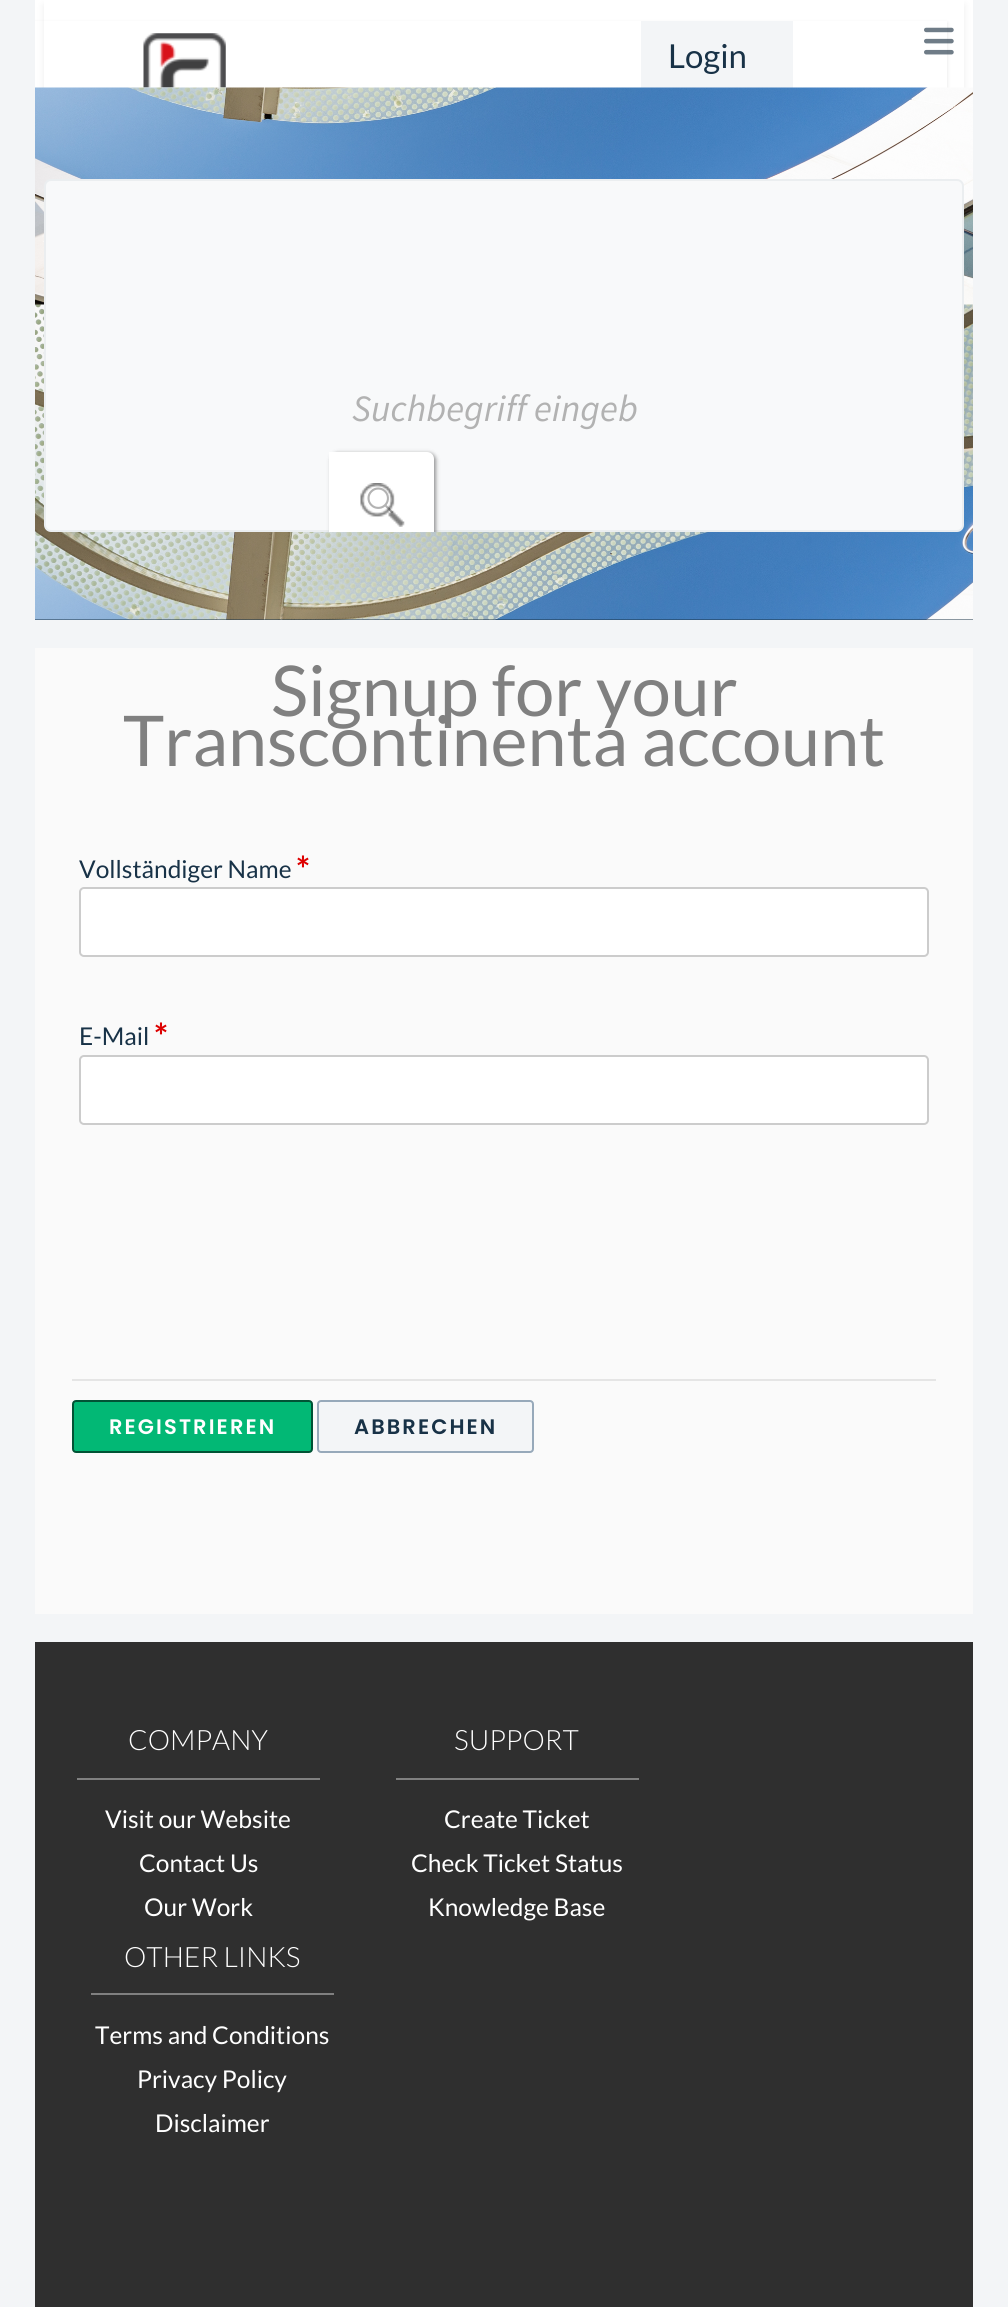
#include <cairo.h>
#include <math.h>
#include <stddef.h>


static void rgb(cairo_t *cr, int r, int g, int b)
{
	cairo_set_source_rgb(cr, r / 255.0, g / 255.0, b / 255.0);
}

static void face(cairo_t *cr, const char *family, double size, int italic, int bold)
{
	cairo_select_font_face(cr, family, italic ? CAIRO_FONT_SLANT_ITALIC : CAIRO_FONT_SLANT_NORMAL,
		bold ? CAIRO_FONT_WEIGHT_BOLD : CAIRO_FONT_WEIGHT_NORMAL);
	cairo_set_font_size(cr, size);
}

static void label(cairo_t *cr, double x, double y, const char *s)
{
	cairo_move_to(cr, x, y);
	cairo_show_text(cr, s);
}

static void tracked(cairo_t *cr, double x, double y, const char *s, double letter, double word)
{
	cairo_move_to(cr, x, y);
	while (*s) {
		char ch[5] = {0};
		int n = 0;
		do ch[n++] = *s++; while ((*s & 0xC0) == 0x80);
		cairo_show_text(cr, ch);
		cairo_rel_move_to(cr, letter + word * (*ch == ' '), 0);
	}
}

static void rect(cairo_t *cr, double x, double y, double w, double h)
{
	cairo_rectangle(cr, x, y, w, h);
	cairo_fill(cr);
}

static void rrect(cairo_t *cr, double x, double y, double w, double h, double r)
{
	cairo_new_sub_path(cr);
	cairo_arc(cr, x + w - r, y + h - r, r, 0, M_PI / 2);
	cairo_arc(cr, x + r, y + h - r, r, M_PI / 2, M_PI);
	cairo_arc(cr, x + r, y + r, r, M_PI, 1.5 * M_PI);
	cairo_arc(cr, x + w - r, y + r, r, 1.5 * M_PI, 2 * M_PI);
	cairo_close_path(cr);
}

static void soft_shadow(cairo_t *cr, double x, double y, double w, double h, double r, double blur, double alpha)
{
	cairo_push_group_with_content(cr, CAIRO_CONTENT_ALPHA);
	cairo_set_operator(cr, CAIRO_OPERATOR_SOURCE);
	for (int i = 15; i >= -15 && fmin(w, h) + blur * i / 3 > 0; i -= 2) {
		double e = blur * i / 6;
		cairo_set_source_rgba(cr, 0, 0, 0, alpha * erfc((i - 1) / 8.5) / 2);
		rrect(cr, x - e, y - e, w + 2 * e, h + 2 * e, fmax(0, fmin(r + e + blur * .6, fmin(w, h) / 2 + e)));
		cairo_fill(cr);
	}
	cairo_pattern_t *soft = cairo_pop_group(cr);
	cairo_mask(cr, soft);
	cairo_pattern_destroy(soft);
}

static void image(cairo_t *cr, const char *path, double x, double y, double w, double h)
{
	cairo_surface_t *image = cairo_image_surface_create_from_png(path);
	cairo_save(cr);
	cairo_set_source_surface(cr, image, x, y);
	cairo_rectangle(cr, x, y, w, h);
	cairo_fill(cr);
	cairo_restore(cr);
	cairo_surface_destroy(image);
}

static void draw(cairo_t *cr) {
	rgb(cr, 243, 245, 247);
	cairo_paint(cr);
	rgb(cr, 255, 255, 255);
	rect(cr, 35, 0, 938, 88);
	image(cr, "image0.png", 143, 33, 83, 55);
	cairo_save(cr);
	cairo_set_fill_rule(cr, CAIRO_FILL_RULE_EVEN_ODD);
	cairo_new_path(cr);
	cairo_move_to(cr, 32, 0);
	cairo_line_to(cr, 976, 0);
	cairo_line_to(cr, 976, 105);
	cairo_line_to(cr, 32, 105);
	cairo_close_path(cr);
	cairo_move_to(cr, 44, 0);
	cairo_line_to(cr, 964, 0);
	cairo_line_to(cr, 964, 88);
	cairo_line_to(cr, 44, 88);
	cairo_close_path(cr);
	cairo_clip(cr);
	rgb(cr, 238, 238, 238);
	soft_shadow(cr, 44, 5, 920, 88, 0, 3.5, 1);
	cairo_restore(cr);
	image(cr, "image1.png", 924, 27, 30, 28);
	cairo_save(cr);
	cairo_rectangle(cr, 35, 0, 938, 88);
	cairo_clip(cr);
	cairo_set_fill_rule(cr, CAIRO_FILL_RULE_EVEN_ODD);
	cairo_new_path(cr);
	cairo_move_to(cr, 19, 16);
	cairo_line_to(cr, 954, 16);
	cairo_line_to(cr, 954, 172);
	cairo_line_to(cr, 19, 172);
	cairo_close_path(cr);
	cairo_move_to(cr, 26, 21);
	cairo_line_to(cr, 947, 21);
	cairo_line_to(cr, 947, 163);
	cairo_line_to(cr, 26, 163);
	cairo_close_path(cr);
	cairo_clip(cr);
	rgb(cr, 63, 63, 68);
	soft_shadow(cr, 26, 23, 921, 142, 0, 2, 0.15);
	cairo_restore(cr);
	rgb(cr, 243, 245, 247);
	rect(cr, 641, 21, 152, 67);
	face(cr, "Lato", 33, 0, 0);
	rgb(cr, 24, 50, 71);
	label(cr, 668, 68, "Login");
	rect(cr, 35, 619, 938, 1);
	image(cr, "image2.png", 35, 87, 938, 533);
	rgb(cr, 248, 249, 250);
	rrect(cr, 45, 180, 918, 351, 6);
	cairo_fill_preserve(cr);
	rgb(cr, 235, 238, 240);
	cairo_stroke(cr);
	face(cr, "Source Sans Pro", 37.25, 1, 0);
	rgb(cr, 178, 178, 178);
	label(cr, 352, 421, "Suchbegriff eingeb");
	cairo_save(cr);
	cairo_rectangle(cr, 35, 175, 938, 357);
	cairo_clip(cr);
	rgb(cr, 0, 0, 0);
	soft_shadow(cr, 331, 453, 105, 105, 7, 2, 0.4);
	cairo_restore(cr);
	rgb(cr, 255, 255, 255);
	cairo_new_path(cr);
	cairo_move_to(cr, 329, 452);
	cairo_line_to(cr, 427, 452);
	cairo_curve_to(cr, 431, 452, 434, 455, 434, 459);
	cairo_line_to(cr, 434, 532);
	cairo_line_to(cr, 329, 532);
	cairo_close_path(cr);
	cairo_fill(cr);
	image(cr, "image3.png", 360, 483, 45, 44);
	image(cr, "image4.png", 367, 487, 26, 26);
	rgb(cr, 250, 250, 250);
	rect(cr, 35, 648, 938, 966);
	face(cr, "Lato", 70, 0, 0);
	rgb(cr, 128, 128, 128);
	label(cr, 271, 716, "Signup for your");
	label(cr, 123, 766, "Transcontinenta account");
	face(cr, "Lato", 24.5, 0, 0);
	rgb(cr, 24, 50, 71);
	label(cr, 79, 878, "Vollständiger Name");
	face(cr, "Lato", 35, 0, 1);
	rgb(cr, 221, 0, 0);
	label(cr, 296, 882, "*");
	rgb(cr, 255, 255, 255);
	rrect(cr, 80, 888, 848, 68, 4);
	cairo_fill_preserve(cr);
	rgb(cr, 204, 204, 204);
	cairo_stroke(cr);
	face(cr, "Lato", 24.5, 0, 0);
	rgb(cr, 24, 50, 71);
	label(cr, 79, 1045, "E-Mail");
	face(cr, "Lato", 35, 0, 1);
	rgb(cr, 221, 0, 0);
	label(cr, 154, 1049, "*");
	rgb(cr, 255, 255, 255);
	rrect(cr, 80, 1056, 848, 68, 4);
	cairo_fill_preserve(cr);
	rgb(cr, 204, 204, 204);
	cairo_stroke(cr);
	rgb(cr, 229, 229, 229);
	rect(cr, 72, 1379, 864, 2);
	rgb(cr, 2, 184, 117);
	rrect(cr, 73, 1401, 239, 51, 3);
	cairo_fill_preserve(cr);
	rgb(cr, 1, 83, 53);
	cairo_stroke(cr);
	face(cr, "Poppins SemiBold", 21, 0, 0);
	rgb(cr, 255, 255, 255);
	tracked(cr, 109, 1434, "REGISTRIEREN", 2.1, 0);
	rgb(cr, 243, 245, 247);
	rrect(cr, 318, 1401, 215, 51, 3);
	cairo_fill_preserve(cr);
	rgb(cr, 151, 169, 186);
	cairo_stroke(cr);
	rgb(cr, 24, 50, 71);
	tracked(cr, 354, 1434, "ABBRECHEN", 2.1, 0);
	rgb(cr, 47, 47, 47);
	rect(cr, 35, 1642, 938, 665);
	rgb(cr, 128, 128, 128);
	rect(cr, 77, 1778, 243, 2);
	face(cr, "Lato Light", 28, 0, 0);
	rgb(cr, 255, 255, 255);
	label(cr, 128, 1750, "COMPANY");
	face(cr, "Lato", 24.5, 0, 0);
	label(cr, 105, 1828, "Visit our Website");
	label(cr, 139, 1872, "Contact Us");
	label(cr, 144, 1916, "Our Work");
	rgb(cr, 128, 128, 128);
	rect(cr, 396, 1778, 243, 2);
	face(cr, "Lato Light", 28, 0, 0);
	rgb(cr, 255, 255, 255);
	label(cr, 454, 1750, "SUPPORT");
	face(cr, "Lato", 24.5, 0, 0);
	label(cr, 444, 1828, "Create Ticket");
	label(cr, 411, 1872, "Check Ticket Status");
	label(cr, 428, 1916, "Knowledge Base");
	rgb(cr, 128, 128, 128);
	rect(cr, 91, 1993, 243, 2);
	face(cr, "Lato Light", 28, 0, 0);
	rgb(cr, 255, 255, 255);
	label(cr, 124, 1967, "OTHER LINKS");
	face(cr, "Lato", 24.5, 0, 0);
	label(cr, 95, 2044, "Terms and Conditions");
	label(cr, 137, 2088, "Privacy Policy");
	label(cr, 155, 2132, "Disclaimer");
}

int main(void) {
	cairo_surface_t *surface = cairo_image_surface_create(CAIRO_FORMAT_RGB24, 1008, 2307);
	cairo_t *cr = cairo_create(surface);
	cairo_font_options_t *options = cairo_font_options_create();
	cairo_font_options_set_hint_metrics(options, CAIRO_HINT_METRICS_OFF);
	cairo_font_options_set_hint_style(options, CAIRO_HINT_STYLE_NONE);
	cairo_set_font_options(cr, options);
	cairo_set_miter_limit(cr, 4);
	draw(cr);
	cairo_surface_write_to_png(surface, "render.png");
	cairo_font_options_destroy(options);
	cairo_destroy(cr);
	cairo_surface_destroy(surface);
	return 0;
}
